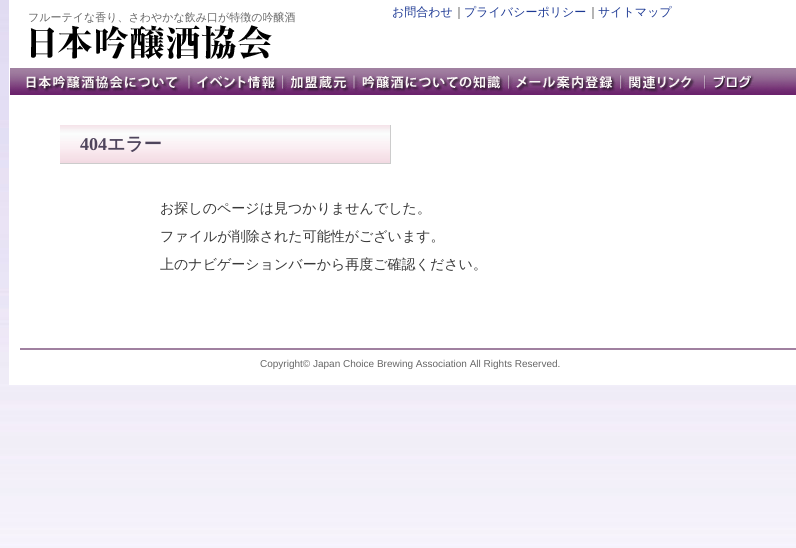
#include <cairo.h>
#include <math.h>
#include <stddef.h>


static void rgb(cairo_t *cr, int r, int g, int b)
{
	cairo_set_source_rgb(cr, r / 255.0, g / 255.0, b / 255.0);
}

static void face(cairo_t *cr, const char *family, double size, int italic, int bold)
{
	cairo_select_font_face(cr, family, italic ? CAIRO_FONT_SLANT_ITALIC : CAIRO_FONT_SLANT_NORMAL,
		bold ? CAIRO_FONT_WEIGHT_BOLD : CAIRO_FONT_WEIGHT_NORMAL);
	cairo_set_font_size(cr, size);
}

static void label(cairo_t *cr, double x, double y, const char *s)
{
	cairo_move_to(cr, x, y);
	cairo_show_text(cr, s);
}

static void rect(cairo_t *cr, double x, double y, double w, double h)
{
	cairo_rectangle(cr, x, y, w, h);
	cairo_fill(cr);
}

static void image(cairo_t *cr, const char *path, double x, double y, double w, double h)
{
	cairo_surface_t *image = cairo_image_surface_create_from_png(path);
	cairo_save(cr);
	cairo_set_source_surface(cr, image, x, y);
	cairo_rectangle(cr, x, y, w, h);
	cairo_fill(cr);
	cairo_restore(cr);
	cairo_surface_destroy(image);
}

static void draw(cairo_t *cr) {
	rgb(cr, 255, 255, 255);
	cairo_paint(cr);
	image(cr, "image0.png", 0, 0, 796, 548);
	rgb(cr, 255, 255, 255);
	rect(cr, 9, 0, 787, 385);
	face(cr, "WenQuanYi Zen Hei Medium", 11, 0, 0);
	rgb(cr, 102, 102, 102);
	label(cr, 28, 21, "フルーテイな香り、さわやかな飲み口が特徴の吟醸酒");
	image(cr, "image1.png", 30, 25, 242, 34);
	face(cr, "WenQuanYi Zen Hei Medium", 12, 0, 0);
	rgb(cr, 29, 57, 148);
	label(cr, 392, 16, "お問合わせ");
	rgb(cr, 56, 56, 56);
	label(cr, 453, 16, "｜");
	rgb(cr, 29, 57, 148);
	label(cr, 464, 16, "プライバシーポリシー");
	rgb(cr, 56, 56, 56);
	label(cr, 587, 16, "｜");
	rgb(cr, 29, 57, 148);
	label(cr, 598, 16, "サイトマップ");
	image(cr, "image2.png", 10, 68, 786, 27);
	image(cr, "image3.png", 26, 76, 155, 16);
	image(cr, "image4.png", 188, 75, 91, 17);
	image(cr, "image5.png", 282, 75, 68, 17);
	image(cr, "image6.png", 351, 75, 154, 17);
	image(cr, "image7.png", 508, 75, 108, 17);
	image(cr, "image8.png", 620, 75, 75, 18);
	image(cr, "image9.png", 704, 75, 50, 16);
	image(cr, "image10.png", 60, 125, 330, 38);
	rgb(cr, 204, 204, 204);
	rect(cr, 390, 125, 1, 39);
	rect(cr, 60, 163, 331, 1);
	face(cr, "Liberation Serif", 18, 0, 1);
	rgb(cr, 79, 69, 92);
	label(cr, 80, 150, "404");
	face(cr, "WenQuanYi Zen Hei", 18, 0, 1);
	label(cr, 107, 150, "エラー");
	face(cr, "WenQuanYi Zen Hei Medium", 14, 0, 0);
	rgb(cr, 56, 56, 56);
	label(cr, 160, 213, "お探しのページは見つかりませんでした。");
	label(cr, 160, 241, "ファイルが削除された可能性がございます。");
	label(cr, 160, 269, "上のナビゲーションバーから再度ご確認ください。");
	rgb(cr, 160, 128, 160);
	rect(cr, 20, 348, 776, 2);
	face(cr, "Liberation Sans", 10, 0, 0);
	rgb(cr, 102, 102, 102);
	label(cr, 260, 367, "Copyright© Japan Choice Brewing Association All Rights Reserved.");
}

int main(void) {
	cairo_surface_t *surface = cairo_image_surface_create(CAIRO_FORMAT_RGB24, 796, 548);
	cairo_t *cr = cairo_create(surface);
	cairo_font_options_t *options = cairo_font_options_create();
	cairo_font_options_set_hint_metrics(options, CAIRO_HINT_METRICS_OFF);
	cairo_font_options_set_hint_style(options, CAIRO_HINT_STYLE_NONE);
	cairo_set_font_options(cr, options);
	cairo_set_miter_limit(cr, 4);
	draw(cr);
	cairo_surface_write_to_png(surface, "render.png");
	cairo_font_options_destroy(options);
	cairo_destroy(cr);
	cairo_surface_destroy(surface);
	return 0;
}
